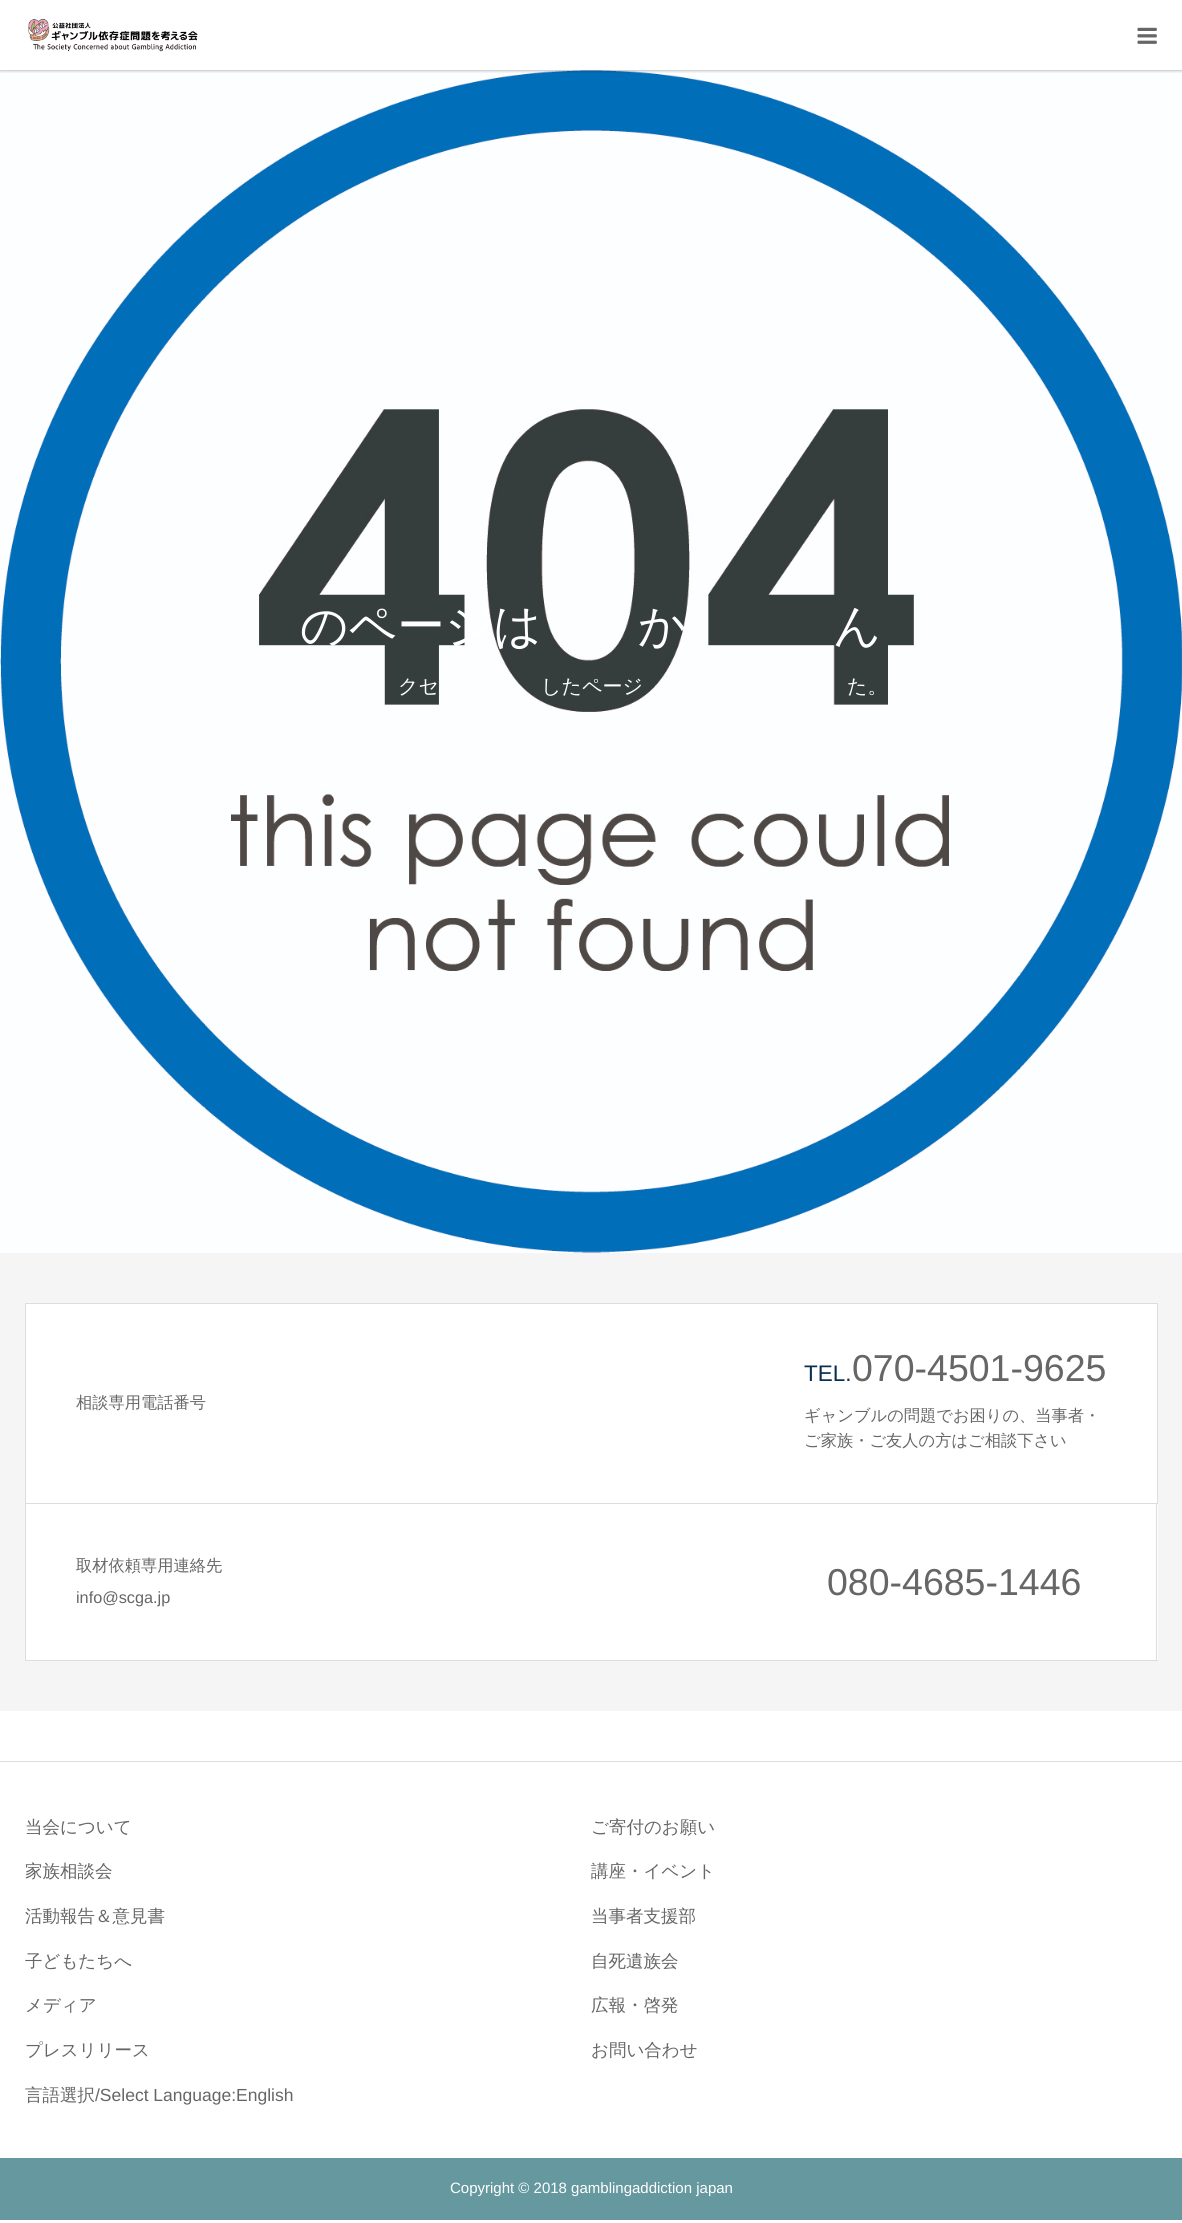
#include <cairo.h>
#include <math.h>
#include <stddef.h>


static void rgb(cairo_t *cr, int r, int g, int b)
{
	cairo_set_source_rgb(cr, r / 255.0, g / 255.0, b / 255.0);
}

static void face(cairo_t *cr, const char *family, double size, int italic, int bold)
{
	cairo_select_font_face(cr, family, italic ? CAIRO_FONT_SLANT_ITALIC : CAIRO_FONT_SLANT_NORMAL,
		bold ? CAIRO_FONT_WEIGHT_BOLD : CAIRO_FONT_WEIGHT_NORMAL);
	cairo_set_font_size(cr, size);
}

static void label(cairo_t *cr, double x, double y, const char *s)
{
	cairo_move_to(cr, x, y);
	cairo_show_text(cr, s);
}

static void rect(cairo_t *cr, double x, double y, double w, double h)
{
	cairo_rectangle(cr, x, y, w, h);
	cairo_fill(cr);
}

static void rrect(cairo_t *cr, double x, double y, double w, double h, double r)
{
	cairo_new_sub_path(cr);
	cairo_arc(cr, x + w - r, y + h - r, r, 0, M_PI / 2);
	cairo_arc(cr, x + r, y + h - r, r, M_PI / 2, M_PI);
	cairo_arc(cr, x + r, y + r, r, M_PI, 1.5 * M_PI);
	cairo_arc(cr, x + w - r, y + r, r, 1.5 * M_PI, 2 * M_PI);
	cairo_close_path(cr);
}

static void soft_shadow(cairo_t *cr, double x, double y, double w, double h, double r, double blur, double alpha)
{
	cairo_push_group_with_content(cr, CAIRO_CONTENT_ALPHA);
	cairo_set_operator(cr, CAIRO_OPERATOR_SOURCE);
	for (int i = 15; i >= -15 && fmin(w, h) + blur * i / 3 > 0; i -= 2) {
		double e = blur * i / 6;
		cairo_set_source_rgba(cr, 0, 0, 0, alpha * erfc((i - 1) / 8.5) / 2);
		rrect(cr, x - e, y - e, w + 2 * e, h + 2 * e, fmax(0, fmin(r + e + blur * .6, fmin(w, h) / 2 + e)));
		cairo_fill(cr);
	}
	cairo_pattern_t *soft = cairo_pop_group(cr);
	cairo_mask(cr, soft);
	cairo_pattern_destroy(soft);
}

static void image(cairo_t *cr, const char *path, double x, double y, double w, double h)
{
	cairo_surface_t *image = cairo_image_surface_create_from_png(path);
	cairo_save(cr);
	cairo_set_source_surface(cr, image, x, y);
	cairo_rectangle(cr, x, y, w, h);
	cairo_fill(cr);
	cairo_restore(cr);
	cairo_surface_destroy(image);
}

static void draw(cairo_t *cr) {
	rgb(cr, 255, 255, 255);
	cairo_paint(cr);
	image(cr, "image2.png", 0, 70, 1182, 1183);
	cairo_save(cr);
	cairo_rectangle(cr, 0, 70, 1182, 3);
	cairo_clip(cr);
	rgb(cr, 0, 0, 0);
	soft_shadow(cr, 0, 0, 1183, 70, 0, 2, 0.4);
	cairo_restore(cr);
	image(cr, "image0.png", 28, 18, 170, 34);
	image(cr, "image1.png", 1137, 27, 20, 17);
	face(cr, "WenQuanYi Zen Hei Medium", 47.5, 0, 0);
	rgb(cr, 255, 255, 255);
	label(cr, 300, 642, "のページは");
	label(cr, 638, 642, "か");
	label(cr, 833, 642, "ん");
	face(cr, "WenQuanYi Zen Hei Medium", 20, 0, 0);
	label(cr, 398, 693, "クセ");
	label(cr, 541, 693, "したページ");
	label(cr, 847, 693, "た。");
	rgb(cr, 245, 245, 245);
	rect(cr, 0, 1253, 1182, 458);
	rgb(cr, 255, 255, 255);
	cairo_rectangle(cr, 25.5, 1303.5, 1132, 200);
	cairo_fill_preserve(cr);
	rgb(cr, 221, 221, 221);
	cairo_set_line_width(cr, 1);
	cairo_stroke(cr);
	face(cr, "WenQuanYi Zen Hei Medium", 16.25, 0, 0);
	rgb(cr, 102, 102, 102);
	label(cr, 76, 1408, "相談専用電話番号");
	face(cr, "Liberation Sans", 22.5, 0, 0);
	rgb(cr, 8, 47, 80);
	label(cr, 804, 1381, "TEL.");
	face(cr, "Liberation Sans", 37.5, 0, 0);
	rgb(cr, 102, 102, 102);
	label(cr, 852, 1381, "070-4501-9625");
	face(cr, "WenQuanYi Zen Hei Medium", 16.25, 0, 0);
	label(cr, 804, 1421, "ギャンブルの問題でお困りの、当事者・");
	label(cr, 804, 1446, "ご家族・ご友人の方はご相談下さい");
	rgb(cr, 255, 255, 255);
	rect(cr, 26, 1504, 1132, 156);
	rgb(cr, 221, 221, 221);
	rect(cr, 1156, 1504, 1, 157);
	rect(cr, 25, 1660, 1133, 1);
	rect(cr, 25, 1504, 1, 157);
	rgb(cr, 102, 102, 102);
	label(cr, 76, 1571, "取材依頼専用連絡先");
	face(cr, "Liberation Sans", 16.25, 0, 0);
	label(cr, 76, 1603, "info@scga.jp");
	face(cr, "Liberation Sans", 37.5, 0, 0);
	label(cr, 827, 1595, "080-4685-1446");
	rgb(cr, 221, 221, 221);
	rect(cr, 0, 1761, 1182, 1);
	face(cr, "WenQuanYi Zen Hei Medium", 17.5, 0, 0);
	rgb(cr, 102, 102, 102);
	label(cr, 25, 1833, "当会について");
	label(cr, 591, 1833, "ご寄付のお願い");
	label(cr, 25, 1877, "家族相談会");
	label(cr, 591, 1877, "講座・イベント");
	label(cr, 25, 1922, "活動報告＆意見書");
	label(cr, 591, 1922, "当事者支援部");
	label(cr, 25, 1967, "子どもたちへ");
	label(cr, 591, 1967, "自死遺族会");
	label(cr, 25, 2011, "メディア");
	label(cr, 591, 2011, "広報・啓発");
	label(cr, 25, 2056, "プレスリリース");
	label(cr, 591, 2056, "お問い合わせ");
	label(cr, 25, 2101, "言語選択");
	face(cr, "Liberation Sans", 17.5, 0, 0);
	label(cr, 95, 2101, "/Select Language:English");
	rgb(cr, 101, 152, 159);
	rect(cr, 0, 2158, 1182, 62);
	face(cr, "Liberation Sans", 15, 0, 0);
	rgb(cr, 255, 255, 255);
	label(cr, 450, 2193, "Copyright © 2018 gamblingaddiction japan");
}

int main(void) {
	cairo_surface_t *surface = cairo_image_surface_create(CAIRO_FORMAT_RGB24, 1182, 2223);
	cairo_t *cr = cairo_create(surface);
	cairo_font_options_t *options = cairo_font_options_create();
	cairo_font_options_set_hint_metrics(options, CAIRO_HINT_METRICS_OFF);
	cairo_font_options_set_hint_style(options, CAIRO_HINT_STYLE_NONE);
	cairo_set_font_options(cr, options);
	cairo_set_miter_limit(cr, 4);
	draw(cr);
	cairo_surface_write_to_png(surface, "render.png");
	cairo_font_options_destroy(options);
	cairo_destroy(cr);
	cairo_surface_destroy(surface);
	return 0;
}
